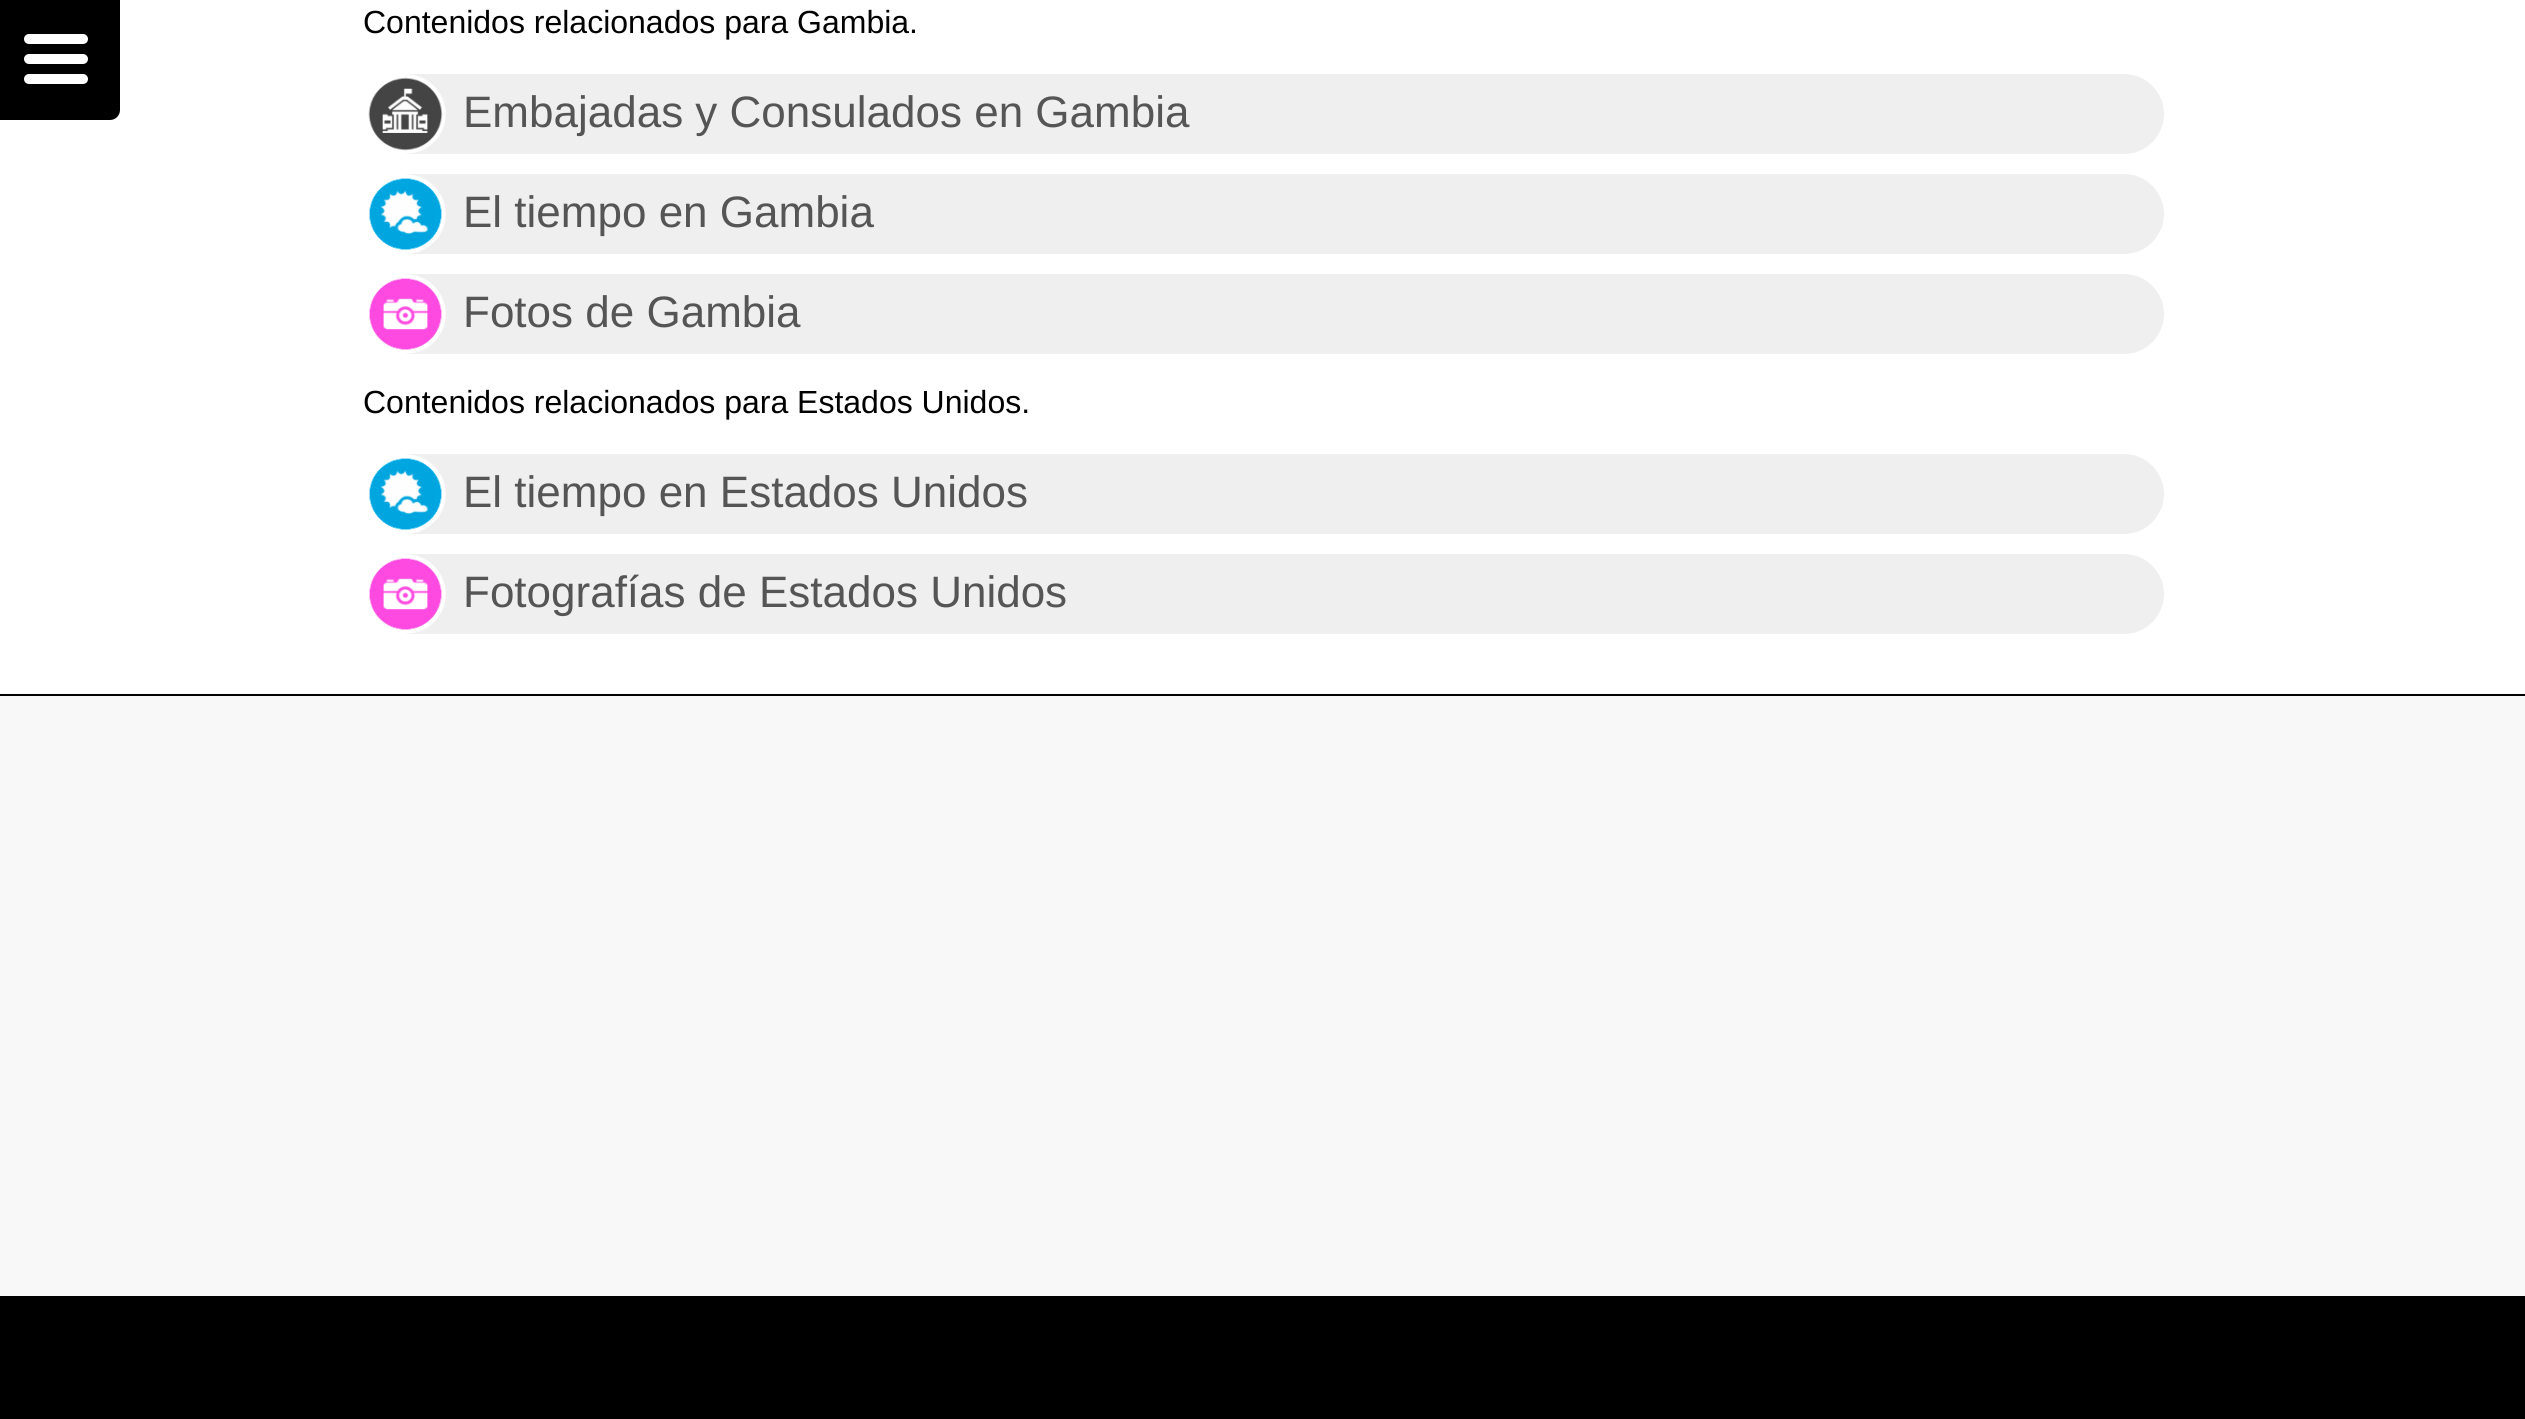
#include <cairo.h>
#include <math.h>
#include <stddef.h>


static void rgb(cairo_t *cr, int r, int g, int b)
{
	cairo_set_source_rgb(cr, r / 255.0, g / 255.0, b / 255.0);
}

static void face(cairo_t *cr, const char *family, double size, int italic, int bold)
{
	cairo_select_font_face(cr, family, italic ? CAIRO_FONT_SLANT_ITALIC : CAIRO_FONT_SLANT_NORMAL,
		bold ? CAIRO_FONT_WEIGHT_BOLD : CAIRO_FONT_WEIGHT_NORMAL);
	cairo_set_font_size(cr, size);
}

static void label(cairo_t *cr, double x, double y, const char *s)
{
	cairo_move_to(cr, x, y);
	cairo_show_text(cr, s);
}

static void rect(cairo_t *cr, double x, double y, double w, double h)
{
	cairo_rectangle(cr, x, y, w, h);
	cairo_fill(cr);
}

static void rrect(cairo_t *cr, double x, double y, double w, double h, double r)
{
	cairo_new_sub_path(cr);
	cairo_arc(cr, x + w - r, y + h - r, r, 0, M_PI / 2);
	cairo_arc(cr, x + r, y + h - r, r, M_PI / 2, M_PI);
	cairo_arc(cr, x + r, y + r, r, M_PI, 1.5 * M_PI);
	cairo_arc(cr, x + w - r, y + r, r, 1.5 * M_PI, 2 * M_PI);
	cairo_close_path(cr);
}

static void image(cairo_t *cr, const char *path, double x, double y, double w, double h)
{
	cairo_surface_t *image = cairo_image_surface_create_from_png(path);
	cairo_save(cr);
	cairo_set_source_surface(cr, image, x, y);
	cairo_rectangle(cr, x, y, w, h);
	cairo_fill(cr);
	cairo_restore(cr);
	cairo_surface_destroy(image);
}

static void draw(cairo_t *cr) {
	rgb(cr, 255, 255, 255);
	cairo_paint(cr);
	rgb(cr, 0, 0, 0);
	cairo_new_path(cr);
	cairo_move_to(cr, 0, 0);
	cairo_line_to(cr, 120, 0);
	cairo_line_to(cr, 120, 110);
	cairo_curve_to(cr, 120, 115.5, 115.5, 120, 110, 120);
	cairo_line_to(cr, 0, 120);
	cairo_close_path(cr);
	cairo_fill(cr);
	rgb(cr, 255, 255, 255);
	rrect(cr, 24, 34, 64, 10, 5);
	cairo_fill(cr);
	rrect(cr, 24, 54, 64, 10, 5);
	cairo_fill(cr);
	rrect(cr, 24, 74, 64, 10, 5);
	cairo_fill(cr);
	face(cr, "Liberation Sans", 32, 0, 0);
	rgb(cr, 0, 0, 0);
	label(cr, 363, 33, "Contenidos relacionados para Gambia.");
	rgb(cr, 239, 239, 239);
	cairo_new_path(cr);
	cairo_move_to(cr, 364, 74);
	cairo_line_to(cr, 2124, 74);
	cairo_curve_to(cr, 2146, 74, 2164, 92, 2164, 114);
	cairo_curve_to(cr, 2164, 136, 2146, 154, 2124, 154);
	cairo_line_to(cr, 364, 154);
	cairo_close_path(cr);
	cairo_fill(cr);
	image(cr, "image0.png", 364, 74, 82, 80);
	face(cr, "Liberation Sans", 44, 0, 0);
	rgb(cr, 85, 85, 85);
	label(cr, 463, 127, "Embajadas y Consulados en Gambia");
	rgb(cr, 239, 239, 239);
	cairo_new_path(cr);
	cairo_move_to(cr, 364, 174);
	cairo_line_to(cr, 2124, 174);
	cairo_curve_to(cr, 2146, 174, 2164, 192, 2164, 214);
	cairo_curve_to(cr, 2164, 236, 2146, 254, 2124, 254);
	cairo_line_to(cr, 364, 254);
	cairo_close_path(cr);
	cairo_fill(cr);
	image(cr, "image1.png", 364, 174, 82, 80);
	rgb(cr, 85, 85, 85);
	label(cr, 463, 227, "El tiempo en Gambia");
	rgb(cr, 239, 239, 239);
	cairo_new_path(cr);
	cairo_move_to(cr, 364, 274);
	cairo_line_to(cr, 2124, 274);
	cairo_curve_to(cr, 2146, 274, 2164, 292, 2164, 314);
	cairo_curve_to(cr, 2164, 336, 2146, 354, 2124, 354);
	cairo_line_to(cr, 364, 354);
	cairo_close_path(cr);
	cairo_fill(cr);
	image(cr, "image2.png", 364, 274, 82, 80);
	rgb(cr, 85, 85, 85);
	label(cr, 463, 327, "Fotos de Gambia");
	face(cr, "Liberation Sans", 32, 0, 0);
	rgb(cr, 0, 0, 0);
	label(cr, 363, 413, "Contenidos relacionados para Estados Unidos.");
	rgb(cr, 239, 239, 239);
	cairo_new_path(cr);
	cairo_move_to(cr, 364, 454);
	cairo_line_to(cr, 2124, 454);
	cairo_curve_to(cr, 2146, 454, 2164, 472, 2164, 494);
	cairo_curve_to(cr, 2164, 516, 2146, 534, 2124, 534);
	cairo_line_to(cr, 364, 534);
	cairo_close_path(cr);
	cairo_fill(cr);
	image(cr, "image1.png", 364, 454, 82, 80);
	face(cr, "Liberation Sans", 44, 0, 0);
	rgb(cr, 85, 85, 85);
	label(cr, 463, 507, "El tiempo en Estados Unidos");
	rgb(cr, 239, 239, 239);
	cairo_new_path(cr);
	cairo_move_to(cr, 364, 554);
	cairo_line_to(cr, 2124, 554);
	cairo_curve_to(cr, 2146, 554, 2164, 572, 2164, 594);
	cairo_curve_to(cr, 2164, 616, 2146, 634, 2124, 634);
	cairo_line_to(cr, 364, 634);
	cairo_close_path(cr);
	cairo_fill(cr);
	image(cr, "image2.png", 364, 554, 82, 80);
	rgb(cr, 85, 85, 85);
	label(cr, 463, 607, "Fotografías de Estados Unidos");
	rgb(cr, 248, 248, 248);
	rect(cr, 0, 696, 2525, 600);
	rgb(cr, 0, 0, 0);
	rect(cr, 0, 694, 2525, 2);
	rect(cr, 0, 1296, 2525, 123);
}

int main(void) {
	cairo_surface_t *surface = cairo_image_surface_create(CAIRO_FORMAT_RGB24, 2525, 1419);
	cairo_t *cr = cairo_create(surface);
	cairo_font_options_t *options = cairo_font_options_create();
	cairo_font_options_set_hint_metrics(options, CAIRO_HINT_METRICS_OFF);
	cairo_font_options_set_hint_style(options, CAIRO_HINT_STYLE_NONE);
	cairo_set_font_options(cr, options);
	cairo_set_miter_limit(cr, 4);
	draw(cr);
	cairo_surface_write_to_png(surface, "render.png");
	cairo_font_options_destroy(options);
	cairo_destroy(cr);
	cairo_surface_destroy(surface);
	return 0;
}
